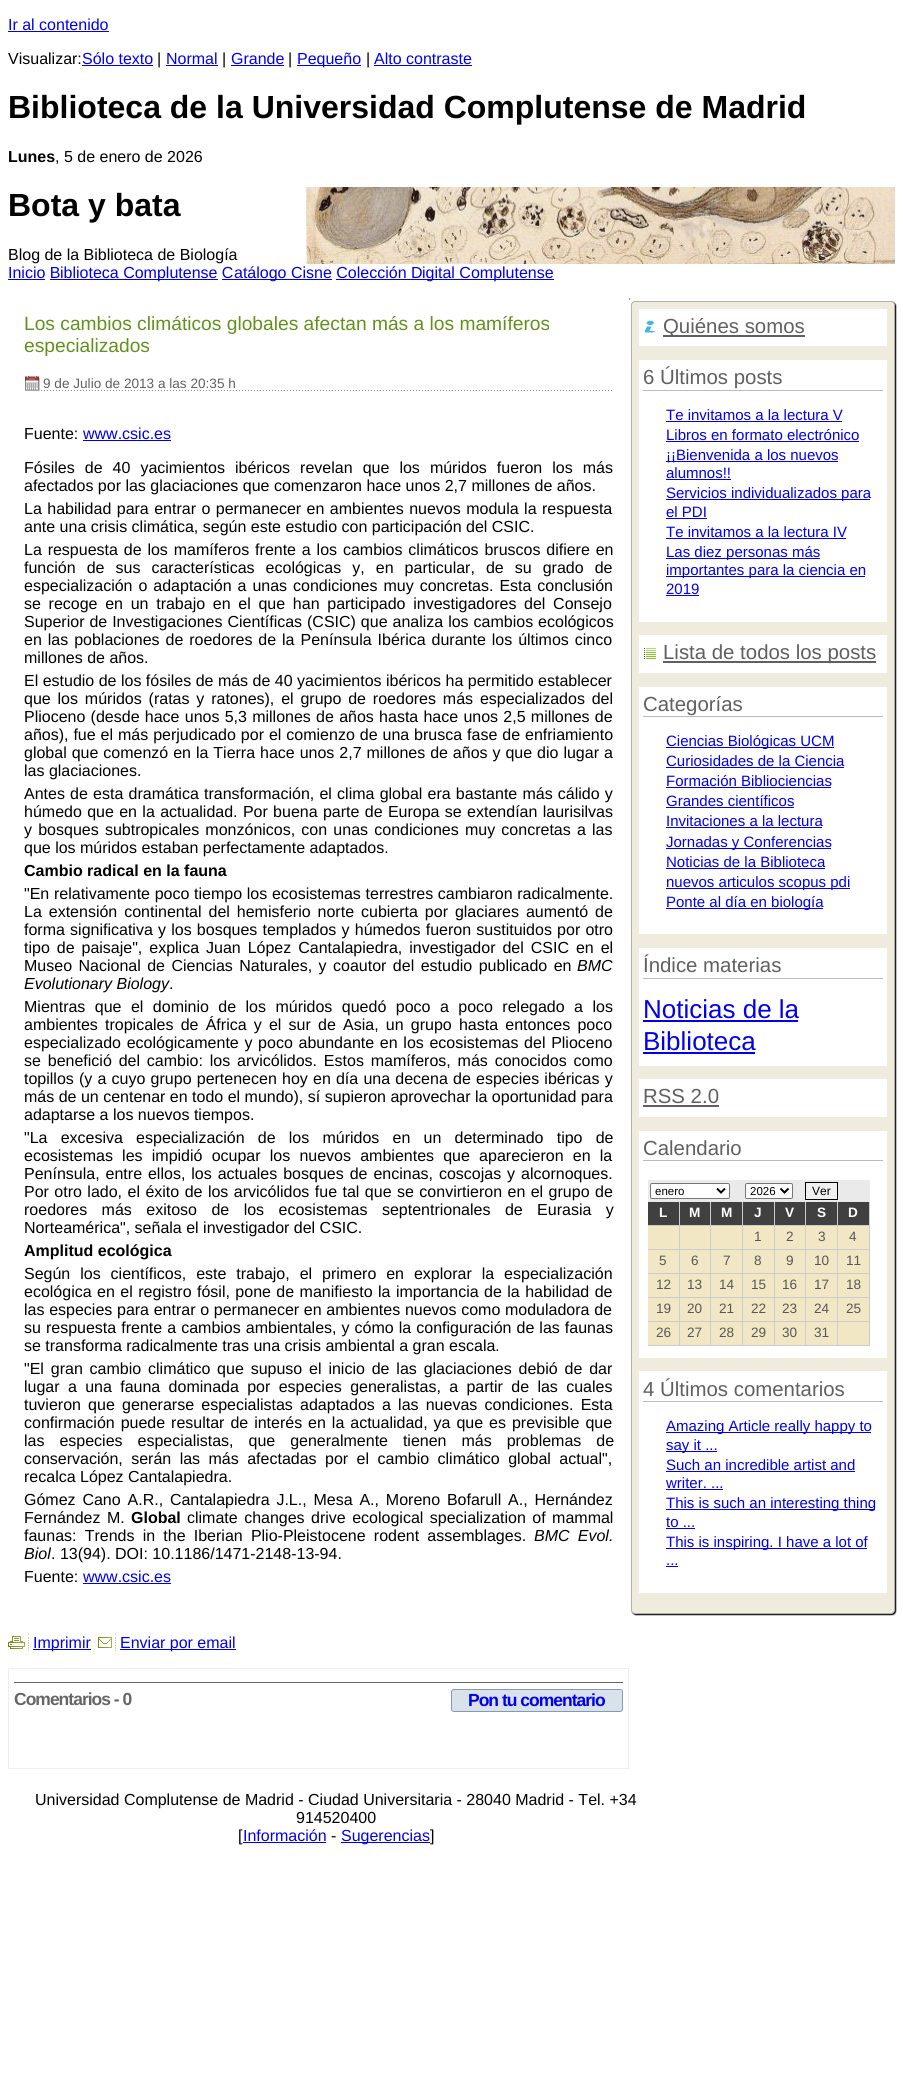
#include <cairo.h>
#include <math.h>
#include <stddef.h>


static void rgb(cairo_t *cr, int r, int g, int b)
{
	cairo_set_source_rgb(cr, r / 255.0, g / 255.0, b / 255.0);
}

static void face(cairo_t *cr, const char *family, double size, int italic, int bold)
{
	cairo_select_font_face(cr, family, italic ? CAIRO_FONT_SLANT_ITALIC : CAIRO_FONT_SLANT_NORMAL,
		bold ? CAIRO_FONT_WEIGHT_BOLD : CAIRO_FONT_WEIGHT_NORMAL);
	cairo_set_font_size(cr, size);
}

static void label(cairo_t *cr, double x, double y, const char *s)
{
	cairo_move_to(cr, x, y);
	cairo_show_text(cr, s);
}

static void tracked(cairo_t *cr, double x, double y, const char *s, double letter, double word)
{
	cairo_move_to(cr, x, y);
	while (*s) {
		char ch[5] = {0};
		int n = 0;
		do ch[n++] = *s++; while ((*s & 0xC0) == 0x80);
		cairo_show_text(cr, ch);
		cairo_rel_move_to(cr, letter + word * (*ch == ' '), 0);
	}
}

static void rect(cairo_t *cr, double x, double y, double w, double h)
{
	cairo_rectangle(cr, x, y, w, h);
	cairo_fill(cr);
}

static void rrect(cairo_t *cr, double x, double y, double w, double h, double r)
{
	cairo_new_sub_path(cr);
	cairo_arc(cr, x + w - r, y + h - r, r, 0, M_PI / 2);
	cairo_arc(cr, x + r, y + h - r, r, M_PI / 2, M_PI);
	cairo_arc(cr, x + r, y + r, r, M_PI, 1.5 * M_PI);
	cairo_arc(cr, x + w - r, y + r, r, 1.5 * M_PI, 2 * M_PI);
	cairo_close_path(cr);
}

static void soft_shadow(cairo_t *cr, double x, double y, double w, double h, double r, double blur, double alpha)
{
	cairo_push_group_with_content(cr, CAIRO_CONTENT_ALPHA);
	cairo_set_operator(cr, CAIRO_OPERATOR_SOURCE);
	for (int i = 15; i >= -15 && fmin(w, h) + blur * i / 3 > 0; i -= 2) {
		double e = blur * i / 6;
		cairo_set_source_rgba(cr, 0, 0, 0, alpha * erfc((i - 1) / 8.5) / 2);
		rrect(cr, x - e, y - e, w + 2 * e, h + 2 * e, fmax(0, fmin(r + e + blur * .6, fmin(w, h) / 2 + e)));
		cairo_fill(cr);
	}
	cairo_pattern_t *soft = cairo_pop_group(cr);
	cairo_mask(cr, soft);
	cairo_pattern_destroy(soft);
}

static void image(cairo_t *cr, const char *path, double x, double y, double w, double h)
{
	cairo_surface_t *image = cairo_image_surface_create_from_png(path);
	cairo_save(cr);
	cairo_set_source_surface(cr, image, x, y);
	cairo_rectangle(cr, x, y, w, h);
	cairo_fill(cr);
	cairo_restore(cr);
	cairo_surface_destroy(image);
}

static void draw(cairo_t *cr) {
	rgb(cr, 255, 255, 255);
	cairo_paint(cr);
	face(cr, "Liberation Sans", 16, 0, 0);
	rgb(cr, 0, 0, 238);
	label(cr, 8, 30, "Ir al contenido");
	rect(cr, 8, 31, 101, 1);
	rgb(cr, 0, 0, 0);
	label(cr, 8, 64, "Visualizar:");
	rgb(cr, 0, 0, 238);
	label(cr, 82, 64, "Sólo texto");
	rect(cr, 82, 65, 71, 1);
	rgb(cr, 0, 0, 0);
	label(cr, 157, 64, "|");
	rgb(cr, 0, 0, 238);
	label(cr, 166, 64, "Normal");
	rect(cr, 166, 65, 52, 1);
	rgb(cr, 0, 0, 0);
	label(cr, 222, 64, "|");
	rgb(cr, 0, 0, 238);
	label(cr, 231, 64, "Grande");
	rect(cr, 231, 65, 53, 1);
	rgb(cr, 0, 0, 0);
	label(cr, 288, 64, "|");
	rgb(cr, 0, 0, 238);
	rect(cr, 297, 65, 64, 1);
	label(cr, 297, 64, "Pequeño");
	rgb(cr, 0, 0, 0);
	label(cr, 366, 64, "|");
	rgb(cr, 0, 0, 238);
	label(cr, 374, 64, "Alto contraste");
	rect(cr, 374, 65, 98, 1);
	face(cr, "Liberation Sans", 32, 0, 1);
	rgb(cr, 0, 0, 0);
	label(cr, 8, 118, "Biblioteca de la Universidad Complutense de Madrid");
	face(cr, "Liberation Sans", 16, 0, 1);
	label(cr, 8, 162, "Lunes");
	face(cr, "Liberation Sans", 16, 0, 0);
	label(cr, 55, 162, ", 5 de enero de 2026");
	image(cr, "image0.png", 306, 187, 589, 77);
	face(cr, "Liberation Sans", 32, 0, 1);
	label(cr, 8, 216, "Bota y bata");
	face(cr, "Liberation Sans", 16, 0, 0);
	label(cr, 8, 260, "Blog de la Biblioteca de Biología");
	rgb(cr, 0, 0, 238);
	label(cr, 8, 278, "Inicio B");
	rect(cr, 8, 279, 37, 1);
	rect(cr, 50, 279, 168, 1);
	label(cr, 60, 278, "iblioteca Complutense C");
	rect(cr, 222, 279, 110, 1);
	label(cr, 234, 278, "atálogo Cisne Colección D");
	rect(cr, 336, 279, 218, 1);
	label(cr, 422, 278, "igital Complutense");
	face(cr, "Liberation Sans", 19.2, 0, 0);
	rgb(cr, 99, 144, 27);
	label(cr, 24, 330, "Los cambios climáticos globales afectan más a los mamíferos");
	label(cr, 24, 352, "especializados");
	image(cr, "image1.png", 40, 390, 572, 1);
	image(cr, "image2.png", 25, 376, 15, 15);
	face(cr, "Liberation Sans", 13.6, 0, 0);
	rgb(cr, 96, 96, 96);
	label(cr, 43, 388, "9 de Julio de 2013 a las 20:35 h");
	face(cr, "Liberation Sans", 16, 0, 0);
	rgb(cr, 0, 0, 0);
	label(cr, 24, 439, "Fuente:");
	rgb(cr, 0, 0, 238);
	label(cr, 83, 439, "www.csic.es");
	rect(cr, 83, 440, 88, 1);
	rgb(cr, 0, 0, 0);
	tracked(cr, 24, 473, "Fósiles de 40 yacimientos ibéricos revelan que los múridos fueron los más", 0, 5.6);
	label(cr, 24, 491, "afectados por las glaciaciones que comenzaron hace unos 2,7 millones de años.");
	tracked(cr, 24, 514, "La habilidad para entrar o permanecer en ambientes nuevos modula la respuesta", 0, 1);
	label(cr, 24, 532, "ante una crisis climática, según este estudio con participación del CSIC.");
	tracked(cr, 24, 555, "La respuesta de los mamíferos frente a los cambios climáticos bruscos difiere en", 0, 1.4);
	tracked(cr, 24, 573, "función de sus características ecológicas y, en particular, de su grado de", 0, 6.6);
	tracked(cr, 24, 591, "especialización o adaptación a unas condiciones muy concretas. Esta conclusión", 0, 1.5);
	tracked(cr, 24, 609, "se recoge en un trabajo en el que han participado investigadores del Consejo", 0, 3.25);
	tracked(cr, 24, 627, "Superior de Investigaciones Científicas (CSIC) que analiza los cambios ecológicos", 0, 0.5);
	tracked(cr, 24, 645, "en las poblaciones de roedores de la Península Ibérica durante los últimos cinco", 0, 1.5);
	label(cr, 24, 663, "millones de años.");
	label(cr, 24, 686, "El estudio de los fósiles de más de 40 yacimientos ibéricos ha permitido establecer");
	tracked(cr, 24, 704, "que los múridos (ratas y ratones), el grupo de roedores más especializados del", 0, 2.4);
	tracked(cr, 24, 722, "Plioceno (desde hace unos 5,3 millones de años hasta hace unos 2,5 millones de", 0, 0.8);
	tracked(cr, 24, 740, "años), fue el más perjudicado por el comienzo de una brusca fase de enfriamiento", 0, 0.5);
	tracked(cr, 24, 758, "global que comenzó en la Tierra hace unos 2,7 millones de años y que dio lugar a", 0, 0.5);
	label(cr, 24, 776, "las glaciaciones.");
	tracked(cr, 24, 799, "Antes de esta dramática transformación, el clima global era bastante más cálido y", 0, 0.75);
	tracked(cr, 24, 817, "húmedo que en la actualidad. Por buena parte de Europa se extendían laurisilvas", 0, 0.9);
	tracked(cr, 24, 835, "y bosques subtropicales monzónicos, con unas condiciones muy concretas a las", 0, 1.75);
	label(cr, 24, 853, "que los múridos estaban perfectamente adaptados.");
	face(cr, "Liberation Sans", 16, 0, 1);
	label(cr, 24, 876, "Cambio radical en la fauna");
	face(cr, "Liberation Sans", 16, 0, 0);
	tracked(cr, 24, 899, "\"En relativamente poco tiempo los ecosistemas terrestres cambiaron radicalmente.", 0, 0.25);
	tracked(cr, 24, 917, "La extensión continental del hemisferio norte cubierta por glaciares aumentó de", 0, 2.5);
	tracked(cr, 24, 935, "forma significativa y los bosques templados y húmedos fueron sustituidos por otro", 0, 0.75);
	tracked(cr, 24, 953, "tipo de paisaje\", explica Juan López Cantalapiedra, investigador del CSIC en el", 0, 2.5);
	tracked(cr, 24, 971, "Museo Nacional de Ciencias Naturales, y coautor del estudio publicado en", 0, 2);
	face(cr, "Liberation Sans", 16, 1, 0);
	label(cr, 577, 971, "BMC");
	label(cr, 24, 989, "Evolutionary Biology");
	face(cr, "Liberation Sans", 16, 0, 0);
	label(cr, 169, 989, ".");
	tracked(cr, 24, 1012, "Mientras que el dominio de los múridos quedó poco a poco relegado a los", 0, 5);
	tracked(cr, 24, 1030, "ambientes tropicales de África y el sur de Asia, un grupo hasta entonces poco", 0, 2.75);
	tracked(cr, 24, 1048, "especializado ecológicamente y poco abundante en los ecosistemas del Plioceno", 0, 1.25);
	tracked(cr, 24, 1066, "se benefició del cambio: los arvicólidos. Estos mamíferos, más conocidos como", 0, 2.4);
	tracked(cr, 24, 1084, "topillos (y a cuyo grupo pertenecen hoy en día una decena de especies ibéricas y", 0, 0.75);
	label(cr, 24, 1102, "más de un centenar en todo el mundo), sí supieron aprovechar la oportunidad para");
	label(cr, 24, 1120, "adaptarse a los nuevos tiempos.");
	tracked(cr, 24, 1143, "\"La excesiva especialización de los múridos en un determinado tipo de", 0, 8.75);
	tracked(cr, 24, 1161, "ecosistemas les impidió ocupar los nuevos ambientes que aparecieron en la", 0, 4.75);
	tracked(cr, 24, 1179, "Península, entre ellos, los actuales bosques de encinas, coscojas y alcornoques.", 0, 1.5);
	tracked(cr, 24, 1197, "Por otro lado, el éxito de los arvicólidos fue tal que se convirtieron en el grupo de", 0, 1);
	tracked(cr, 24, 1215, "roedores más exitoso de los ecosistemas septentrionales de Eurasia y", 0, 10);
	label(cr, 24, 1233, "Norteamérica\", señala el investigador del CSIC.");
	face(cr, "Liberation Sans", 16, 0, 1);
	label(cr, 24, 1256, "Amplitud ecológica");
	face(cr, "Liberation Sans", 16, 0, 0);
	tracked(cr, 24, 1279, "Según los científicos, este trabajo, el primero en explorar la especialización", 0, 5.5);
	tracked(cr, 24, 1297, "ecológica en el registro fósil, pone de manifiesto la importancia de la habilidad de", 0, 1);
	tracked(cr, 24, 1315, "las especies para entrar o permanecer en ambientes nuevos como moduladora de", 0, 0.25);
	tracked(cr, 24, 1333, "su respuesta frente a cambios ambientales, y cómo la configuración de las faunas", 0, 0.6);
	label(cr, 24, 1351, "se transforma radicalmente tras una crisis ambiental a gran escala.");
	tracked(cr, 24, 1374, "\"El gran cambio climático que supuso el inicio de las glaciaciones debió de dar", 0, 2.4);
	tracked(cr, 24, 1392, "lugar a una fauna dominada por especies generalistas, a partir de las cuales", 0, 3.9);
	tracked(cr, 24, 1410, "tuvieron que generarse especialistas adaptados a las nuevas condiciones. Esta", 0, 2.75);
	tracked(cr, 24, 1428, "confirmación puede resultar de interés en la actualidad, ya que es previsible que", 0, 1.5);
	tracked(cr, 24, 1446, "las especies especialistas, que generalmente tienen más problemas de", 0, 10.5);
	tracked(cr, 24, 1464, "conservación, serán las más afectadas por el cambio climático global actual\",", 0, 4);
	label(cr, 24, 1482, "recalca López Cantalapiedra.");
	tracked(cr, 24, 1505, "Gómez Cano A.R., Cantalapiedra J.L., Mesa A., Moreno Bofarull A., Hernández", 0, 2.4);
	tracked(cr, 24, 1523, "Fernández M.", 0, 2);
	face(cr, "Liberation Sans", 16, 0, 1);
	label(cr, 131, 1523, "Global");
	face(cr, "Liberation Sans", 16, 0, 0);
	tracked(cr, 187, 1523, "climate changes drive ecological specialization of mammal", 0, 2);
	tracked(cr, 24, 1541, "faunas: Trends in the Iberian Plio-Pleistocene rodent assemblages.", 0, 3.75);
	face(cr, "Liberation Sans", 16, 1, 0);
	tracked(cr, 534, 1541, "BMC Evol.", 0, 3.75);
	label(cr, 24, 1559, "Biol");
	face(cr, "Liberation Sans", 16, 0, 0);
	label(cr, 51, 1559, ". 13(94). DOI: 10.1186/1471-2148-13-94.");
	label(cr, 24, 1582, "Fuente:");
	rgb(cr, 0, 0, 238);
	label(cr, 83, 1582, "www.csic.es");
	rect(cr, 83, 1583, 88, 1);
	image(cr, "image3.png", 8, 1634, 21, 17);
	rect(cr, 33, 1649, 58, 1);
	label(cr, 33, 1648, "Imprimir");
	image(cr, "image4.png", 98, 1634, 18, 17);
	rect(cr, 120, 1649, 116, 1);
	label(cr, 120, 1648, "Enviar por email");
	cairo_rectangle(cr, 8.5, 1668.5, 620, 100);
	rgb(cr, 238, 238, 238);
	cairo_set_line_width(cr, 1);
	cairo_stroke(cr);
	rgb(cr, 102, 102, 102);
	rect(cr, 14, 1682, 609, 1);
	face(cr, "Liberation Sans", 17.5, 0, 1);
	tracked(cr, 14, 1705, "Comentarios - 0", -1, 0);
	rgb(cr, 217, 226, 235);
	rrect(cr, 451.5, 1689.5, 171, 22, 2.5);
	cairo_fill_preserve(cr);
	rgb(cr, 130, 155, 180);
	cairo_stroke(cr);
	rgb(cr, 0, 0, 238);
	tracked(cr, 468, 1706, "Pon tu comentario", -1, 0);
	rgb(cr, 0, 0, 0);
	soft_shadow(cr, 632, 302, 264, 1313, 4, 0.5, 1);
	rgb(cr, 239, 236, 221);
	rrect(cr, 631.5, 301.5, 263, 1312, 3.5);
	cairo_fill_preserve(cr);
	rgb(cr, 179, 177, 166);
	cairo_stroke(cr);
	rgb(cr, 255, 255, 255);
	rect(cr, 639, 309, 248, 37);
	image(cr, "image5.png", 644, 320, 11, 13);
	rgb(cr, 96, 96, 96);
	rect(cr, 663, 335, 142, 2);
	face(cr, "Liberation Sans", 20.4, 0, 0);
	label(cr, 663, 333, "Quiénes somos");
	rgb(cr, 255, 255, 255);
	rect(cr, 639, 360, 248, 262);
	rgb(cr, 187, 187, 187);
	rect(cr, 643, 390, 240, 1);
	rgb(cr, 96, 96, 96);
	label(cr, 643, 384, "6 Últimos posts");
	face(cr, "Liberation Sans", 15, 0, 0);
	rgb(cr, 0, 0, 238);
	label(cr, 666, 420, "Te invitamos a la lectura V");
	rect(cr, 666, 421, 176, 1);
	label(cr, 666, 440, "Libros en formato electrónico");
	rect(cr, 666, 441, 193, 1);
	rect(cr, 666, 461, 172, 1);
	label(cr, 666, 460, "¡¡Bienvenida a los nuevos");
	label(cr, 666, 478, "alumnos!!");
	rect(cr, 666, 479, 65, 1);
	rect(cr, 666, 499, 204, 1);
	label(cr, 666, 498, "Servicios individualizados para");
	label(cr, 666, 517, "el PDI");
	rect(cr, 666, 518, 41, 1);
	label(cr, 666, 537, "Te invitamos a la lectura IV");
	rect(cr, 666, 538, 180, 1);
	rect(cr, 666, 558, 154, 1);
	label(cr, 666, 557, "Las diez personas más");
	rect(cr, 666, 576, 199, 1);
	label(cr, 666, 575, "importantes para la ciencia en");
	label(cr, 666, 594, "2019");
	rect(cr, 666, 595, 33, 1);
	rgb(cr, 255, 255, 255);
	rect(cr, 639, 635, 248, 38);
	image(cr, "image6.png", 644, 648, 12, 11);
	rgb(cr, 96, 96, 96);
	rect(cr, 663, 661, 213, 2);
	face(cr, "Liberation Sans", 20.4, 0, 0);
	label(cr, 663, 659, "Lista de todos los posts");
	rgb(cr, 255, 255, 255);
	rect(cr, 639, 687, 248, 247);
	rgb(cr, 187, 187, 187);
	rect(cr, 643, 716, 240, 1);
	rgb(cr, 96, 96, 96);
	label(cr, 643, 711, "Categorías");
	rgb(cr, 0, 0, 238);
	rect(cr, 666, 747, 168, 1);
	face(cr, "Liberation Sans", 15, 0, 0);
	label(cr, 666, 746, "Ciencias Biológicas UCM");
	label(cr, 666, 766, "Curiosidades de la Ciencia");
	rect(cr, 666, 767, 178, 1);
	label(cr, 666, 786, "Formación Bibliociencias");
	rect(cr, 666, 787, 165, 1);
	label(cr, 666, 806, "Grandes científicos");
	rect(cr, 666, 807, 128, 1);
	label(cr, 666, 826, "Invitaciones a la lectura");
	rect(cr, 666, 827, 156, 1);
	rect(cr, 666, 848, 165, 1);
	label(cr, 666, 847, "Jornadas y Conferencias");
	label(cr, 666, 867, "Noticias de la Biblioteca");
	rect(cr, 666, 868, 159, 1);
	rect(cr, 666, 888, 184, 1);
	label(cr, 666, 887, "nuevos articulos scopus pdi");
	rect(cr, 666, 908, 157, 1);
	label(cr, 666, 907, "Ponte al día en biología");
	rgb(cr, 255, 255, 255);
	rect(cr, 639, 948, 248, 118);
	rgb(cr, 187, 187, 187);
	rect(cr, 643, 978, 240, 1);
	face(cr, "Liberation Sans", 20.4, 0, 0);
	rgb(cr, 96, 96, 96);
	label(cr, 643, 972, "Índice materias");
	face(cr, "Liberation Sans", 26, 0, 0);
	rgb(cr, 0, 0, 238);
	label(cr, 643, 1018, "Noticias de la");
	rect(cr, 643, 1020, 155, 2);
	label(cr, 643, 1050, "Biblioteca");
	rect(cr, 643, 1052, 112, 2);
	rgb(cr, 255, 255, 255);
	rect(cr, 639, 1079, 248, 38);
	face(cr, "Liberation Sans", 20.4, 0, 0);
	rgb(cr, 96, 96, 96);
	label(cr, 643, 1103, "RSS 2.0");
	rect(cr, 643, 1105, 76, 2);
	rgb(cr, 255, 255, 255);
	rect(cr, 639, 1131, 248, 227);
	rgb(cr, 187, 187, 187);
	rect(cr, 643, 1160, 240, 1);
	rgb(cr, 96, 96, 96);
	label(cr, 643, 1155, "Calendario");
	rgb(cr, 234, 234, 234);
	rect(cr, 648, 1180, 222, 22);
	rgb(cr, 255, 255, 255);
	rrect(cr, 650.5, 1183.5, 79, 15, 1.5);
	cairo_fill_preserve(cr);
	rgb(cr, 118, 118, 118);
	cairo_stroke(cr);
	cairo_new_path(cr);
	cairo_move_to(cr, 717, 1188.5);
	cairo_line_to(cr, 721, 1192.5);
	cairo_line_to(cr, 725, 1188.5);
	rgb(cr, 0, 0, 0);
	cairo_set_line_width(cr, 2);
	cairo_stroke(cr);
	face(cr, "Liberation Sans", 11.5, 0, 0);
	label(cr, 655, 1195, "enero");
	rgb(cr, 255, 255, 255);
	rrect(cr, 745.5, 1183.5, 47, 15, 1.5);
	cairo_fill_preserve(cr);
	rgb(cr, 118, 118, 118);
	cairo_set_line_width(cr, 1);
	cairo_stroke(cr);
	cairo_new_path(cr);
	cairo_move_to(cr, 780.5, 1188.5);
	cairo_line_to(cr, 784.5, 1192.5);
	cairo_line_to(cr, 788.5, 1188.5);
	rgb(cr, 0, 0, 0);
	cairo_set_line_width(cr, 2);
	cairo_stroke(cr);
	label(cr, 750, 1195, "2026");
	rgb(cr, 239, 239, 239);
	cairo_rectangle(cr, 805.5, 1182.5, 32, 17);
	cairo_fill_preserve(cr);
	rgb(cr, 0, 0, 0);
	cairo_set_line_width(cr, 1);
	cairo_stroke(cr);
	face(cr, "Liberation Sans", 12, 0, 0);
	label(cr, 812, 1195, "Ver");
	rgb(cr, 64, 64, 64);
	rect(cr, 648, 1202, 31, 23);
	rgb(cr, 204, 204, 204);
	rect(cr, 679, 1202, 1, 144);
	rect(cr, 648, 1225, 32, 1);
	face(cr, "Liberation Sans", 13.6, 0, 1);
	rgb(cr, 255, 255, 255);
	label(cr, 659, 1217, "L");
	rgb(cr, 64, 64, 64);
	rect(cr, 680, 1202, 30, 23);
	rgb(cr, 204, 204, 204);
	rect(cr, 710, 1202, 1, 144);
	rect(cr, 680, 1225, 31, 1);
	rgb(cr, 255, 255, 255);
	label(cr, 689, 1217, "M");
	rgb(cr, 64, 64, 64);
	rect(cr, 711, 1202, 31, 23);
	rgb(cr, 204, 204, 204);
	rect(cr, 742, 1202, 1, 144);
	rect(cr, 711, 1225, 32, 1);
	rgb(cr, 255, 255, 255);
	label(cr, 721, 1217, "M");
	rgb(cr, 64, 64, 64);
	rect(cr, 743, 1202, 31, 23);
	rgb(cr, 204, 204, 204);
	rect(cr, 774, 1202, 1, 144);
	rect(cr, 743, 1225, 32, 1);
	rgb(cr, 255, 255, 255);
	label(cr, 754, 1217, "J");
	rgb(cr, 64, 64, 64);
	rect(cr, 775, 1202, 30, 23);
	rgb(cr, 204, 204, 204);
	rect(cr, 805, 1202, 1, 144);
	rect(cr, 775, 1225, 31, 1);
	rgb(cr, 255, 255, 255);
	label(cr, 785, 1217, "V");
	rgb(cr, 64, 64, 64);
	rect(cr, 806, 1202, 31, 23);
	rgb(cr, 204, 204, 204);
	rect(cr, 837, 1202, 1, 144);
	rect(cr, 806, 1225, 32, 1);
	rgb(cr, 255, 255, 255);
	label(cr, 817, 1217, "S");
	rgb(cr, 64, 64, 64);
	rect(cr, 838, 1202, 31, 23);
	rgb(cr, 204, 204, 204);
	rect(cr, 869, 1202, 1, 144);
	rect(cr, 838, 1225, 32, 1);
	rgb(cr, 255, 255, 255);
	label(cr, 848, 1217, "D");
	rgb(cr, 242, 231, 197);
	rect(cr, 648, 1226, 31, 23);
	rgb(cr, 204, 204, 204);
	rect(cr, 648, 1249, 222, 1);
	rgb(cr, 242, 231, 197);
	rect(cr, 680, 1226, 30, 23);
	rect(cr, 711, 1226, 31, 23);
	rect(cr, 743, 1226, 31, 23);
	face(cr, "Liberation Sans", 13.6, 0, 0);
	rgb(cr, 87, 87, 87);
	label(cr, 754, 1241, "1");
	rgb(cr, 242, 231, 197);
	rect(cr, 775, 1226, 30, 23);
	rgb(cr, 87, 87, 87);
	label(cr, 786, 1241, "2");
	rgb(cr, 242, 231, 197);
	rect(cr, 806, 1226, 31, 23);
	rgb(cr, 87, 87, 87);
	label(cr, 818, 1241, "3");
	rgb(cr, 242, 231, 197);
	rect(cr, 838, 1226, 31, 23);
	rgb(cr, 87, 87, 87);
	label(cr, 849, 1241, "4");
	rgb(cr, 242, 231, 197);
	rect(cr, 648, 1250, 31, 23);
	rgb(cr, 204, 204, 204);
	rect(cr, 648, 1273, 222, 1);
	rgb(cr, 87, 87, 87);
	label(cr, 659, 1265, "5");
	rgb(cr, 242, 231, 197);
	rect(cr, 680, 1250, 30, 23);
	rgb(cr, 87, 87, 87);
	label(cr, 691, 1265, "6");
	rgb(cr, 242, 231, 197);
	rect(cr, 711, 1250, 31, 23);
	rgb(cr, 87, 87, 87);
	label(cr, 723, 1265, "7");
	rgb(cr, 242, 231, 197);
	rect(cr, 743, 1250, 31, 23);
	rgb(cr, 87, 87, 87);
	label(cr, 754, 1265, "8");
	rgb(cr, 242, 231, 197);
	rect(cr, 775, 1250, 30, 23);
	rgb(cr, 87, 87, 87);
	label(cr, 786, 1265, "9");
	rgb(cr, 242, 231, 197);
	rect(cr, 806, 1250, 31, 23);
	rgb(cr, 87, 87, 87);
	label(cr, 814, 1265, "10");
	rgb(cr, 242, 231, 197);
	rect(cr, 838, 1250, 31, 23);
	rgb(cr, 87, 87, 87);
	label(cr, 846, 1265, "11");
	rgb(cr, 242, 231, 197);
	rect(cr, 648, 1274, 31, 23);
	rgb(cr, 204, 204, 204);
	rect(cr, 648, 1297, 222, 1);
	rgb(cr, 87, 87, 87);
	label(cr, 656, 1289, "12");
	rgb(cr, 242, 231, 197);
	rect(cr, 680, 1274, 30, 23);
	rgb(cr, 87, 87, 87);
	label(cr, 687, 1289, "13");
	rgb(cr, 242, 231, 197);
	rect(cr, 711, 1274, 31, 23);
	rgb(cr, 87, 87, 87);
	label(cr, 719, 1289, "14");
	rgb(cr, 242, 231, 197);
	rect(cr, 743, 1274, 31, 23);
	rgb(cr, 87, 87, 87);
	label(cr, 751, 1289, "15");
	rgb(cr, 242, 231, 197);
	rect(cr, 775, 1274, 30, 23);
	rgb(cr, 87, 87, 87);
	label(cr, 782, 1289, "16");
	rgb(cr, 242, 231, 197);
	rect(cr, 806, 1274, 31, 23);
	rgb(cr, 87, 87, 87);
	label(cr, 814, 1289, "17");
	rgb(cr, 242, 231, 197);
	rect(cr, 838, 1274, 31, 23);
	rgb(cr, 87, 87, 87);
	label(cr, 846, 1289, "18");
	rgb(cr, 242, 231, 197);
	rect(cr, 648, 1298, 31, 23);
	rgb(cr, 204, 204, 204);
	rect(cr, 648, 1321, 222, 1);
	rgb(cr, 87, 87, 87);
	label(cr, 656, 1313, "19");
	rgb(cr, 242, 231, 197);
	rect(cr, 680, 1298, 30, 23);
	rgb(cr, 87, 87, 87);
	label(cr, 687, 1313, "20");
	rgb(cr, 242, 231, 197);
	rect(cr, 711, 1298, 31, 23);
	rgb(cr, 87, 87, 87);
	label(cr, 719, 1313, "21");
	rgb(cr, 242, 231, 197);
	rect(cr, 743, 1298, 31, 23);
	rgb(cr, 87, 87, 87);
	label(cr, 751, 1313, "22");
	rgb(cr, 242, 231, 197);
	rect(cr, 775, 1298, 30, 23);
	rgb(cr, 87, 87, 87);
	label(cr, 782, 1313, "23");
	rgb(cr, 242, 231, 197);
	rect(cr, 806, 1298, 31, 23);
	rgb(cr, 87, 87, 87);
	label(cr, 814, 1313, "24");
	rgb(cr, 242, 231, 197);
	rect(cr, 838, 1298, 31, 23);
	rgb(cr, 87, 87, 87);
	label(cr, 846, 1313, "25");
	rgb(cr, 242, 231, 197);
	rect(cr, 648, 1322, 31, 23);
	rgb(cr, 204, 204, 204);
	rect(cr, 648, 1345, 222, 1);
	rgb(cr, 87, 87, 87);
	label(cr, 656, 1337, "26");
	rgb(cr, 242, 231, 197);
	rect(cr, 680, 1322, 30, 23);
	rgb(cr, 87, 87, 87);
	label(cr, 687, 1337, "27");
	rgb(cr, 242, 231, 197);
	rect(cr, 711, 1322, 31, 23);
	rgb(cr, 87, 87, 87);
	label(cr, 719, 1337, "28");
	rgb(cr, 242, 231, 197);
	rect(cr, 743, 1322, 31, 23);
	rgb(cr, 87, 87, 87);
	label(cr, 751, 1337, "29");
	rgb(cr, 242, 231, 197);
	rect(cr, 775, 1322, 30, 23);
	rgb(cr, 87, 87, 87);
	label(cr, 782, 1337, "30");
	rgb(cr, 242, 231, 197);
	rect(cr, 806, 1322, 31, 23);
	rgb(cr, 87, 87, 87);
	label(cr, 814, 1337, "31");
	rgb(cr, 242, 231, 197);
	rect(cr, 838, 1322, 31, 23);
	rgb(cr, 255, 255, 255);
	rect(cr, 639, 1371, 248, 222);
	rgb(cr, 187, 187, 187);
	rect(cr, 643, 1401, 240, 1);
	face(cr, "Liberation Sans", 20.4, 0, 0);
	rgb(cr, 96, 96, 96);
	label(cr, 643, 1396, "4 Últimos comentarios");
	rgb(cr, 0, 0, 238);
	rect(cr, 666, 1432, 205, 1);
	face(cr, "Liberation Sans", 15, 0, 0);
	label(cr, 666, 1431, "Amazing Article really happy to");
	rect(cr, 666, 1451, 51, 1);
	label(cr, 666, 1450, "say it ...");
	label(cr, 666, 1470, "Such an incredible artist and");
	rect(cr, 666, 1471, 189, 1);
	label(cr, 666, 1488, "writer. ...");
	rect(cr, 666, 1489, 57, 1);
	rect(cr, 666, 1509, 209, 1);
	label(cr, 666, 1508, "This is such an interesting thing");
	label(cr, 666, 1527, "to ...");
	rect(cr, 666, 1528, 29, 1);
	rect(cr, 666, 1548, 201, 1);
	label(cr, 666, 1547, "This is inspiring. I have a lot of");
	label(cr, 666, 1565, "...");
	rect(cr, 666, 1566, 12, 1);
	rgb(cr, 238, 238, 238);
	rect(cr, 630, 298, 1, 2);
	rect(cr, 629, 299, 2, 1);
	rgb(cr, 159, 159, 159);
	rect(cr, 629, 298, 1, 2);
	face(cr, "Liberation Sans", 16, 0, 0);
	rgb(cr, 0, 0, 0);
	label(cr, 35, 1805, "Universidad Complutense de Madrid - Ciudad Universitaria - 28040 Madrid - Tel. +34");
	label(cr, 296, 1823, "914520400");
	label(cr, 238, 1841, "[");
	rgb(cr, 0, 0, 238);
	label(cr, 243, 1841, "Información");
	rect(cr, 243, 1842, 83, 1);
	rgb(cr, 0, 0, 0);
	label(cr, 331, 1841, "-");
	rgb(cr, 0, 0, 238);
	rect(cr, 341, 1842, 89, 1);
	label(cr, 341, 1841, "Sugerencias");
	rgb(cr, 0, 0, 0);
	label(cr, 430, 1841, "]");
}

int main(void) {
	cairo_surface_t *surface = cairo_image_surface_create(CAIRO_FORMAT_RGB24, 903, 2077);
	cairo_t *cr = cairo_create(surface);
	cairo_font_options_t *options = cairo_font_options_create();
	cairo_font_options_set_hint_metrics(options, CAIRO_HINT_METRICS_OFF);
	cairo_font_options_set_hint_style(options, CAIRO_HINT_STYLE_NONE);
	cairo_set_font_options(cr, options);
	cairo_set_miter_limit(cr, 4);
	draw(cr);
	cairo_surface_write_to_png(surface, "render.png");
	cairo_font_options_destroy(options);
	cairo_destroy(cr);
	cairo_surface_destroy(surface);
	return 0;
}
